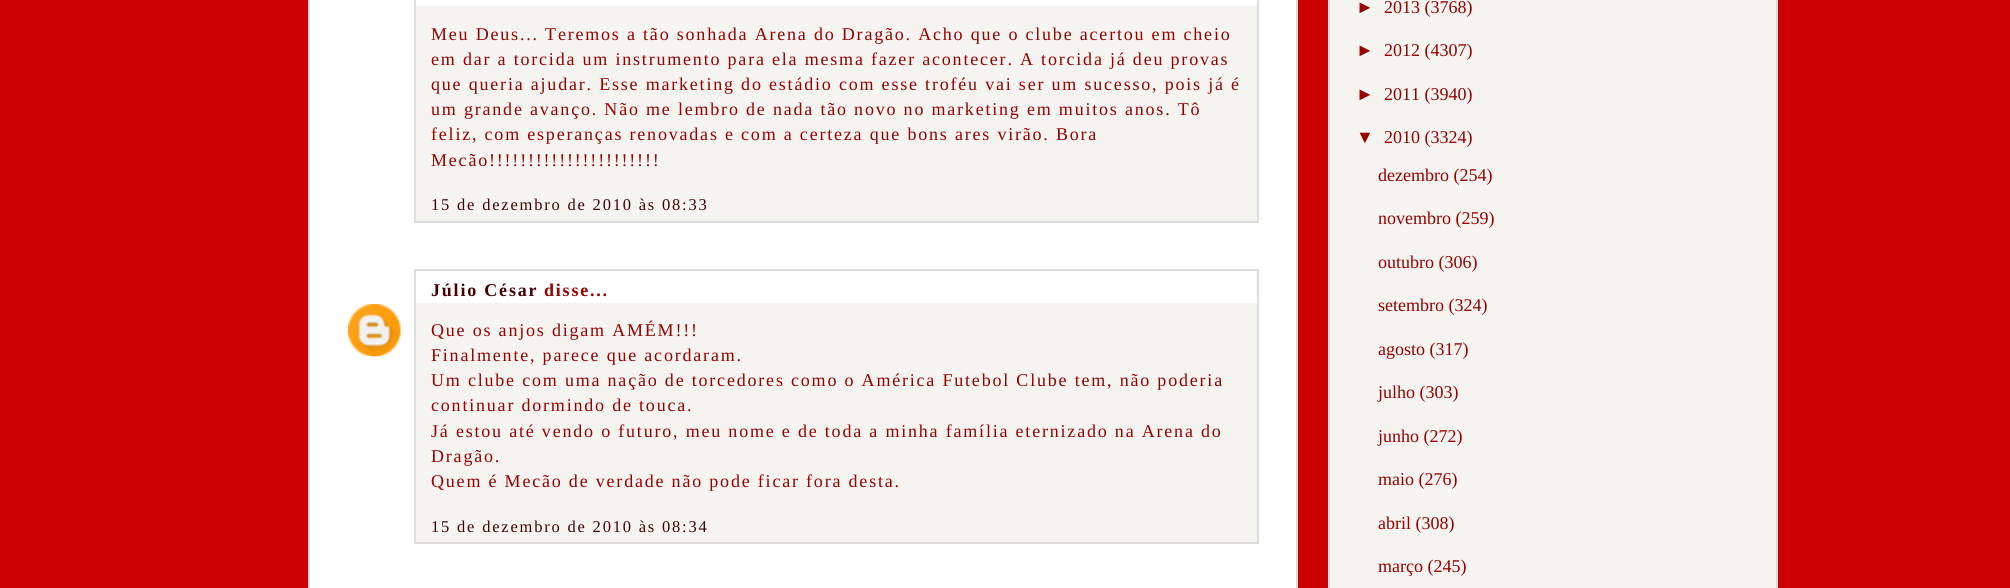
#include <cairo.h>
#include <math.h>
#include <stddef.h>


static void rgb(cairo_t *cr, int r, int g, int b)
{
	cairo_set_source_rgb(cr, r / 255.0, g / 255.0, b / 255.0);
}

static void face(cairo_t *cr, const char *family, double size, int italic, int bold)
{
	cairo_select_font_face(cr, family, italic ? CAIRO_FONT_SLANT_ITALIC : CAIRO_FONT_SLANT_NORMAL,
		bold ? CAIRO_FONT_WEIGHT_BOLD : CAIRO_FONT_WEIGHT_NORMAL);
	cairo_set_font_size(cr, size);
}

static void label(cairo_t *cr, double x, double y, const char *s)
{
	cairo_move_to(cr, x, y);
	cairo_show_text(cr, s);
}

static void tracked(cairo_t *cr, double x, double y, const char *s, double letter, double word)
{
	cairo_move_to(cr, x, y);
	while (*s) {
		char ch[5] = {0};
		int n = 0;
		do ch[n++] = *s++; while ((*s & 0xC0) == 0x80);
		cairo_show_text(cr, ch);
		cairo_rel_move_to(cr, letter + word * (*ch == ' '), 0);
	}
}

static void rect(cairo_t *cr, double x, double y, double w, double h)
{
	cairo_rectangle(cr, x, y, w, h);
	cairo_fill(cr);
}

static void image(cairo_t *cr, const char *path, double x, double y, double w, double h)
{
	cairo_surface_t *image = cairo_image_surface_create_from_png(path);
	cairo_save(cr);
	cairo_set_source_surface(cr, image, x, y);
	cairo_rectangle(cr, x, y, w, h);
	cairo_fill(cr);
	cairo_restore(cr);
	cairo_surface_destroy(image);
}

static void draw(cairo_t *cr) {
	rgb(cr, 204, 0, 0);
	cairo_paint(cr);
	rgb(cr, 255, 255, 255);
	cairo_rectangle(cr, 309, -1, 988, 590);
	cairo_fill_preserve(cr);
	rgb(cr, 221, 221, 221);
	cairo_stroke(cr);
	rect(cr, 1257, 0, 2, 222);
	rect(cr, 414, 0, 2, 188);
	rgb(cr, 245, 244, 240);
	rect(cr, 416, 6, 841, 215);
	face(cr, "Liberation Serif", 18, 0, 0);
	rgb(cr, 153, 0, 0);
	tracked(cr, 431, 40, "Meu Deus... Teremos a tão sonhada Arena do Dragão. Acho que o clube acertou em cheio", 1.8, 0);
	tracked(cr, 431, 65, "em dar a torcida um instrumento para ela mesma fazer acontecer. A torcida já deu provas", 1.8, 0);
	tracked(cr, 431, 90, "que queria ajudar. Esse marketing do estádio com esse troféu vai ser um sucesso, pois já é", 1.8, 0);
	tracked(cr, 431, 115, "um grande avanço. Não me lembro de nada tão novo no marketing em muitos anos. Tô", 1.8, 0);
	tracked(cr, 431, 140, "feliz, com esperanças renovadas e com a certeza que bons ares virão. Bora", 1.8, 0);
	tracked(cr, 431, 166, "Mecão!!!!!!!!!!!!!!!!!!!!!!", 1.8, 0);
	rgb(cr, 221, 221, 221);
	rect(cr, 414, 221, 845, 2);
	rect(cr, 414, 188, 2, 34);
	face(cr, "Liberation Serif", 16.5, 0, 0);
	rgb(cr, 68, 0, 0);
	tracked(cr, 431, 210, "15 de dezembro de 2010 às 08:33", 1.8, 0);
	rgb(cr, 221, 221, 221);
	rect(cr, 414, 269, 845, 2);
	rect(cr, 1257, 269, 2, 274);
	rect(cr, 414, 269, 2, 240);
	face(cr, "Liberation Serif", 18, 0, 1);
	rgb(cr, 68, 0, 0);
	tracked(cr, 431, 296, "Júlio César", 1.8, 0);
	rgb(cr, 153, 0, 0);
	tracked(cr, 544, 296, "disse...", 1.8, 0);
	image(cr, "image0.png", 348, 304, 53, 53);
	rgb(cr, 245, 244, 240);
	rect(cr, 416, 303, 841, 239);
	face(cr, "Liberation Serif", 18, 0, 0);
	rgb(cr, 153, 0, 0);
	tracked(cr, 431, 336, "Que os anjos digam AMÉM!!!", 1.8, 0);
	tracked(cr, 431, 361, "Finalmente, parece que acordaram.", 1.8, 0);
	tracked(cr, 431, 386, "Um clube com uma nação de torcedores como o América Futebol Clube tem, não poderia", 1.8, 0);
	tracked(cr, 431, 411, "continuar dormindo de touca.", 1.8, 0);
	tracked(cr, 431, 437, "Já estou até vendo o futuro, meu nome e de toda a minha família eternizado na Arena do", 1.8, 0);
	tracked(cr, 431, 462, "Dragão.", 1.8, 0);
	tracked(cr, 431, 487, "Quem é Mecão de verdade não pode ficar fora desta.", 1.8, 0);
	rgb(cr, 221, 221, 221);
	rect(cr, 414, 542, 845, 2);
	rect(cr, 414, 509, 2, 34);
	face(cr, "Liberation Serif", 16.5, 0, 0);
	rgb(cr, 68, 0, 0);
	tracked(cr, 431, 532, "15 de dezembro de 2010 às 08:34", 1.8, 0);
	rgb(cr, 245, 244, 240);
	cairo_rectangle(cr, 1329, -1, 448, 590);
	cairo_fill_preserve(cr);
	rgb(cr, 221, 221, 221);
	cairo_stroke(cr);
	face(cr, "Liberation Sans", 18, 0, 0);
	rgb(cr, 153, 0, 0);
	label(cr, 1356, 13, "►");
	face(cr, "Liberation Serif", 18, 0, 0);
	label(cr, 1384, 13, "2013 (3768)");
	face(cr, "Liberation Sans", 18, 0, 0);
	label(cr, 1356, 56, "►");
	face(cr, "Liberation Serif", 18, 0, 0);
	label(cr, 1384, 56, "2012 (4307)");
	face(cr, "Liberation Sans", 18, 0, 0);
	label(cr, 1356, 100, "►");
	face(cr, "Liberation Serif", 18, 0, 0);
	label(cr, 1384, 100, "2011 (3940)");
	face(cr, "Liberation Sans", 18, 0, 0);
	label(cr, 1356, 143, "▼");
	face(cr, "Liberation Serif", 18, 0, 0);
	label(cr, 1384, 143, "2010 (3324)");
	label(cr, 1378, 181, "dezembro (254)");
	label(cr, 1378, 224, "novembro (259)");
	label(cr, 1378, 268, "outubro (306)");
	label(cr, 1378, 311, "setembro (324)");
	label(cr, 1378, 355, "agosto (317)");
	label(cr, 1378, 398, "julho (303)");
	label(cr, 1378, 442, "junho (272)");
	label(cr, 1378, 485, "maio (276)");
	label(cr, 1378, 529, "abril (308)");
	label(cr, 1378, 572, "março (245)");
}

int main(void) {
	cairo_surface_t *surface = cairo_image_surface_create(CAIRO_FORMAT_RGB24, 2010, 588);
	cairo_t *cr = cairo_create(surface);
	cairo_font_options_t *options = cairo_font_options_create();
	cairo_font_options_set_hint_metrics(options, CAIRO_HINT_METRICS_OFF);
	cairo_font_options_set_hint_style(options, CAIRO_HINT_STYLE_NONE);
	cairo_set_font_options(cr, options);
	cairo_set_miter_limit(cr, 4);
	draw(cr);
	cairo_surface_write_to_png(surface, "render.png");
	cairo_font_options_destroy(options);
	cairo_destroy(cr);
	cairo_surface_destroy(surface);
	return 0;
}
